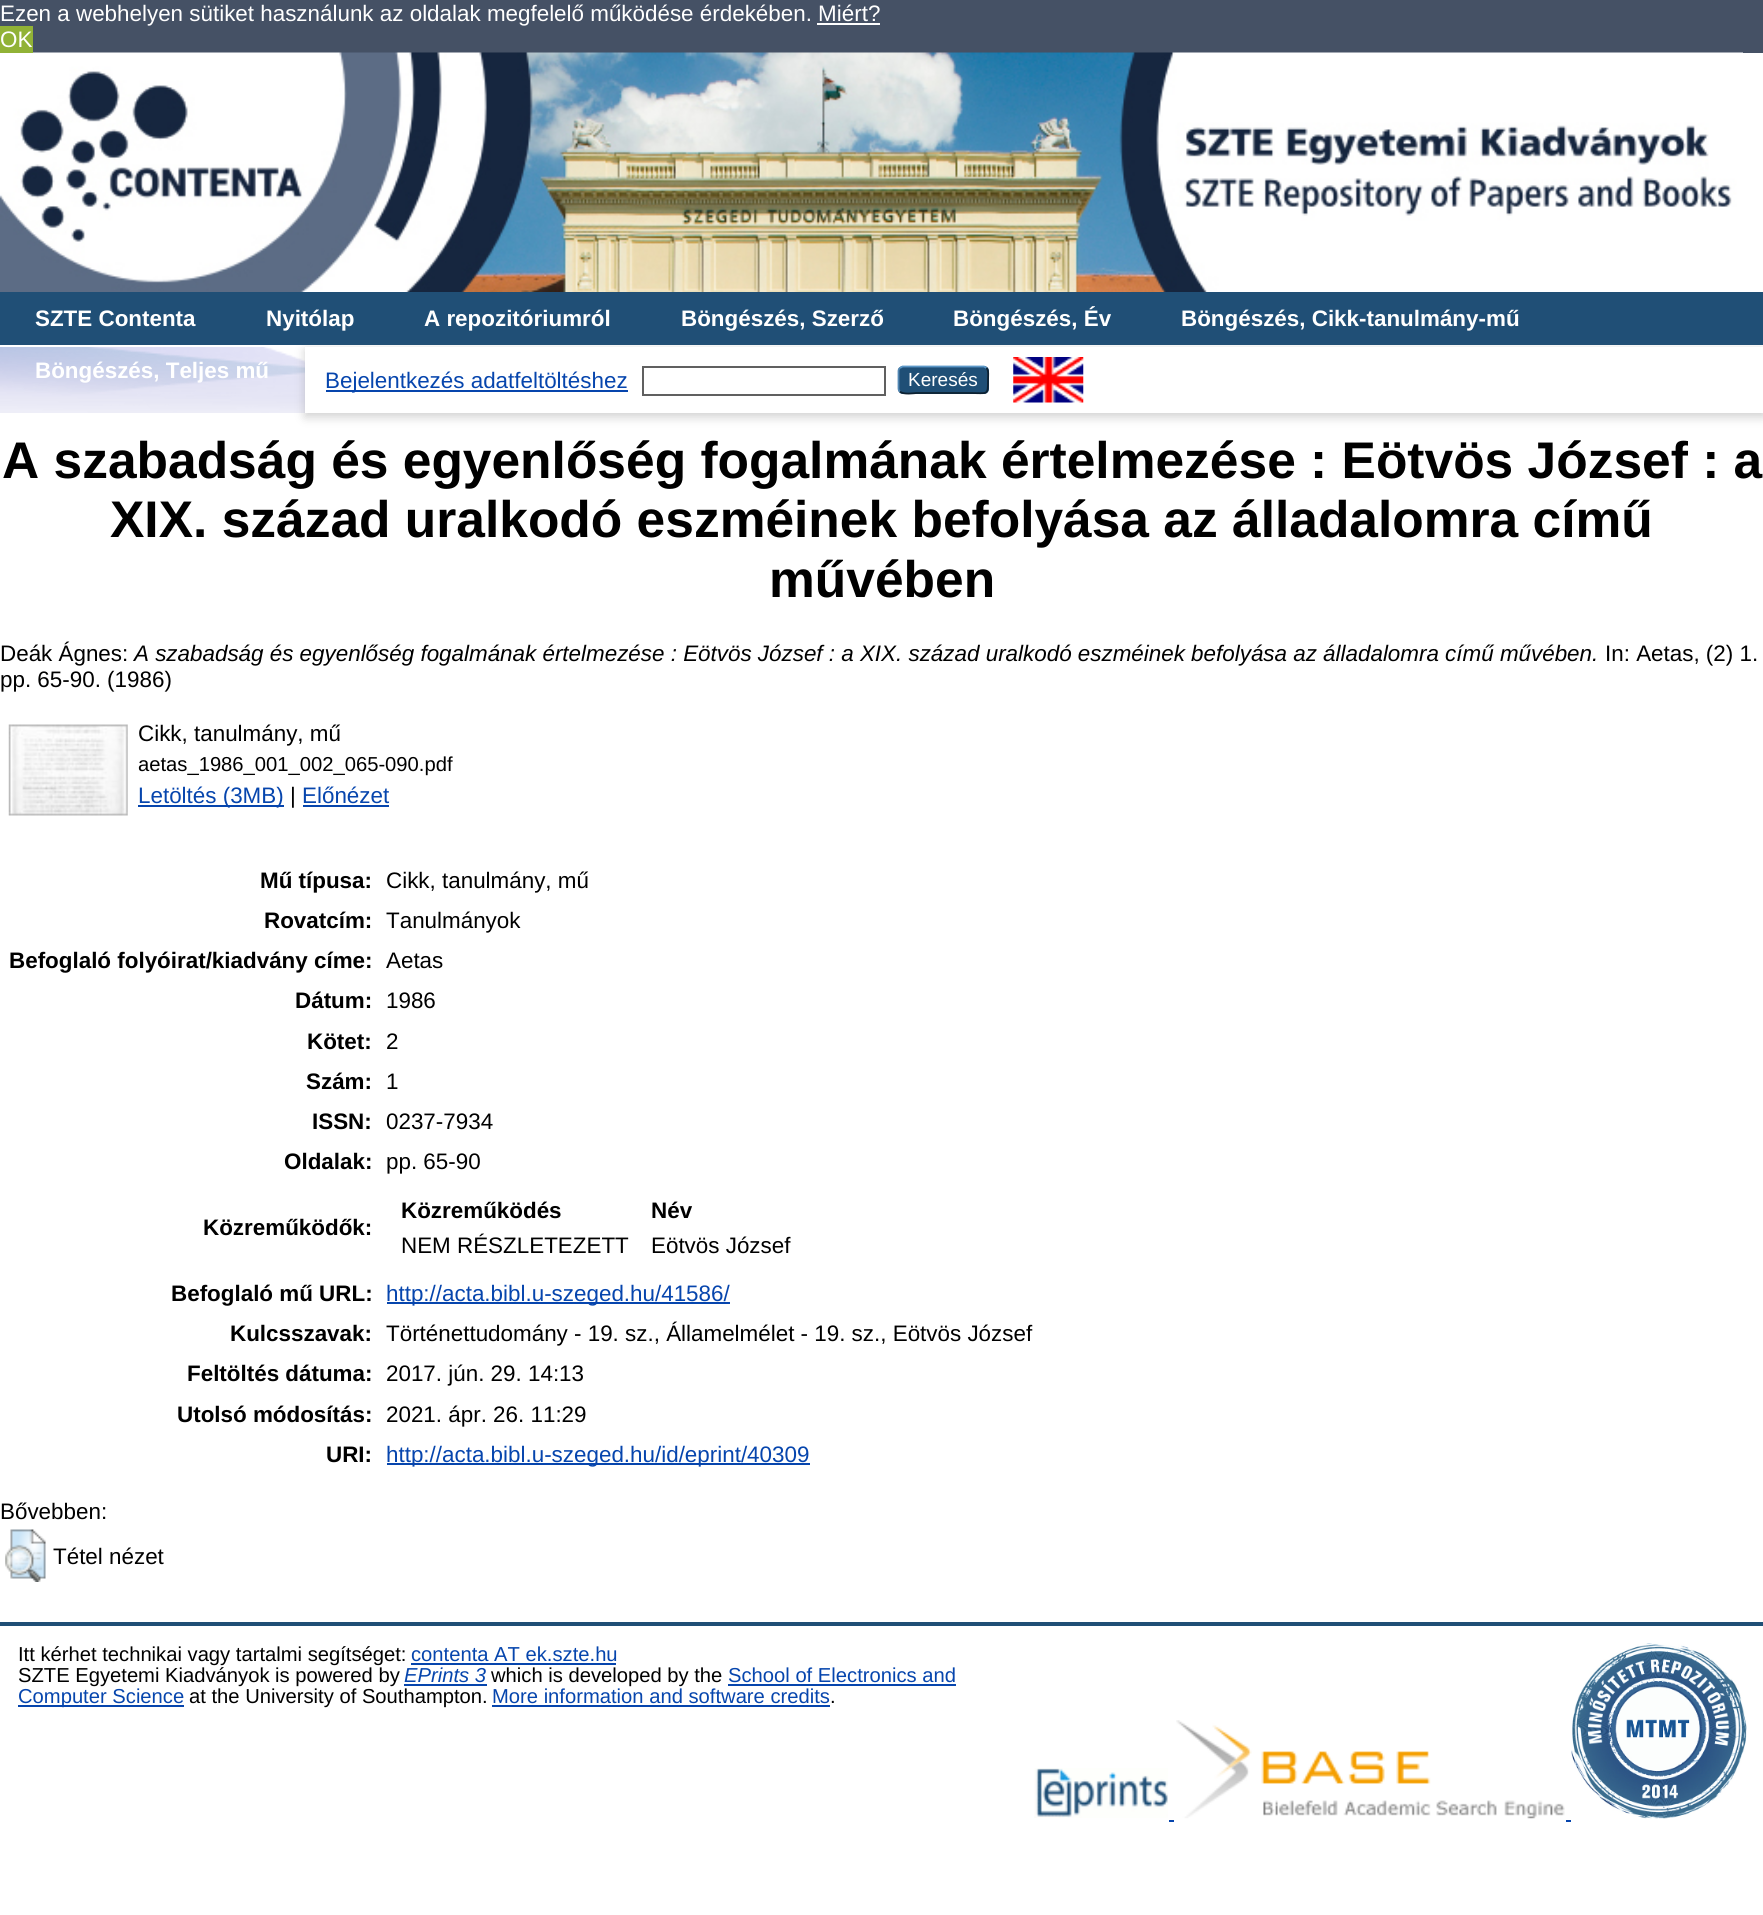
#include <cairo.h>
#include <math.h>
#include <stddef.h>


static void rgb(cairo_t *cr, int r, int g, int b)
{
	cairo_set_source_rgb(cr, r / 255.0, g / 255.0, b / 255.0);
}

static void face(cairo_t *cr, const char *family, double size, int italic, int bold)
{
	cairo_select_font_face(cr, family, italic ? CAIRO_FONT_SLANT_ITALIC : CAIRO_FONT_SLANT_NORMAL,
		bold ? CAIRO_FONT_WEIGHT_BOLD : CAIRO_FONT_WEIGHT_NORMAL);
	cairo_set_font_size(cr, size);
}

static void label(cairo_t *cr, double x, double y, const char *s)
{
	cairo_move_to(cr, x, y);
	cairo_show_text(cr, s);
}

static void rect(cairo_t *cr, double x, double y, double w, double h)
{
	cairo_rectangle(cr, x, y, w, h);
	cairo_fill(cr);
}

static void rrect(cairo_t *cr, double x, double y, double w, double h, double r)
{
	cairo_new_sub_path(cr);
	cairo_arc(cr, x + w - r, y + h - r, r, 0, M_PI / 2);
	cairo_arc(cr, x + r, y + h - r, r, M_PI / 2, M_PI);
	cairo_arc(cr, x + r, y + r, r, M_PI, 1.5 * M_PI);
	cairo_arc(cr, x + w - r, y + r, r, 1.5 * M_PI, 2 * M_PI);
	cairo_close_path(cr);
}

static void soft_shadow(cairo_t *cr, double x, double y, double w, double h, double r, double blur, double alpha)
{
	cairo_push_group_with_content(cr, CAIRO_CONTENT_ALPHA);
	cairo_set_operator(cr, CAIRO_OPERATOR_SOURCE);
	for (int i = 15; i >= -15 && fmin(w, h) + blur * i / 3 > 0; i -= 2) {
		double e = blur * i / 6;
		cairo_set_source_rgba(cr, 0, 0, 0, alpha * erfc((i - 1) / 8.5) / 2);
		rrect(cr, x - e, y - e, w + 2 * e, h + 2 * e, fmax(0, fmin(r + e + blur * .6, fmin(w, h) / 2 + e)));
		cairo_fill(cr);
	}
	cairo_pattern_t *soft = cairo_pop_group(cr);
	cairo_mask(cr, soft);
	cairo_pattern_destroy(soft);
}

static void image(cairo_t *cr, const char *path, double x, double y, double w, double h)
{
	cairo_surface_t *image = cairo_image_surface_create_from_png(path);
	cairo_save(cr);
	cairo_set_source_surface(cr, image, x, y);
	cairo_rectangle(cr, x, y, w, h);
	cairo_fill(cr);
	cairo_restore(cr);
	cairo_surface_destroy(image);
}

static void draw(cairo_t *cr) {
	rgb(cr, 255, 255, 255);
	cairo_paint(cr);
	rgb(cr, 69, 81, 101);
	rect(cr, 0, 0, 1763, 53);
	face(cr, "Liberation Sans", 22.4, 0, 0);
	rgb(cr, 255, 255, 255);
	label(cr, 0, 21, "Ezen a webhelyen sütiket használunk az oldalak megfelelő működése érdekében. Miért?");
	rect(cr, 817, 23, 63, 2);
	image(cr, "image1.png", 0, 52, 1743, 240);
	rgb(cr, 145, 178, 54);
	rect(cr, 0, 26, 33, 27);
	rgb(cr, 255, 255, 255);
	label(cr, 0, 47, "OK");
	image(cr, "image0.png", 0, 347, 305, 66);
	rgb(cr, 32, 79, 118);
	rect(cr, 0, 292, 1763, 53);
	face(cr, "Liberation Sans", 22.4, 0, 1);
	rgb(cr, 255, 255, 255);
	label(cr, 35, 326, "SZTE Contenta");
	label(cr, 266, 326, "Nyitólap");
	label(cr, 424, 326, "A repozitóriumról");
	label(cr, 681, 326, "Böngészés, Szerző");
	label(cr, 953, 326, "Böngészés, Év");
	label(cr, 1181, 326, "Böngészés, Cikk-tanulmány-mű");
	label(cr, 35, 378, "Böngészés, Teljes mű");
	rgb(cr, 100, 100, 100);
	soft_shadow(cr, 305, 350, 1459, 67, 0, 5, 0.3);
	rgb(cr, 255, 255, 255);
	rect(cr, 305, 347, 1458, 66);
	rgb(cr, 6, 69, 173);
	rect(cr, 326, 390, 302, 2);
	face(cr, "Liberation Sans", 22.4, 0, 0);
	label(cr, 325, 388, "Bejelentkezés adatfeltöltéshez");
	cairo_rectangle(cr, 643, 367, 242, 28);
	rgb(cr, 96, 96, 96);
	cairo_stroke(cr);
	rgb(cr, 31, 79, 118);
	rrect(cr, 898, 366, 91, 28, 5);
	cairo_fill(cr);
	cairo_new_path(cr);
	cairo_move_to(cr, 900, 368);
	cairo_line_to(cr, 902.5, 366.5);
	cairo_line_to(cr, 984, 366.5);
	cairo_line_to(cr, 986.5, 368);
	rgb(cr, 91, 151, 199);
	cairo_set_line_width(cr, 1.8);
	cairo_stroke(cr);
	cairo_new_path(cr);
	cairo_move_to(cr, 986.5, 368);
	cairo_curve_to(cr, 989, 370.5, 988, 376.5, 988, 380);
	cairo_curve_to(cr, 988, 396, 988, 393, 970, 393);
	cairo_line_to(cr, 916.5, 393);
	cairo_curve_to(cr, 915.5, 393, 903, 395, 900, 391.5);
	rgb(cr, 13, 33, 49);
	cairo_stroke(cr);
	cairo_new_path(cr);
	cairo_move_to(cr, 900, 391.5);
	cairo_curve_to(cr, 899, 391, 898.5, 389.5, 898.5, 388.5);
	cairo_line_to(cr, 898.5, 371);
	cairo_curve_to(cr, 898.5, 370, 899, 368.5, 900, 368);
	rgb(cr, 82, 135, 179);
	cairo_stroke(cr);
	face(cr, "Liberation Sans", 19, 0, 0);
	rgb(cr, 255, 255, 255);
	label(cr, 908, 386, "Keresés");
	image(cr, "image2.png", 1013, 357, 71, 46);
	face(cr, "Liberation Sans", 51.5, 0, 1);
	rgb(cr, 0, 0, 0);
	label(cr, 2, 478, "A szabadság és egyenlőség fogalmának értelmezése : Eötvös József : a");
	label(cr, 110, 537, "XIX. század uralkodó eszméinek befolyása az álladalomra című");
	label(cr, 769, 597, "művében");
	face(cr, "Liberation Sans", 22.4, 0, 0);
	label(cr, 0, 661, "Deák Ágnes:");
	face(cr, "Liberation Sans", 22.4, 1, 0);
	label(cr, 134, 661, "A szabadság és egyenlőség fogalmának értelmezése : Eötvös József : a XIX. század uralkodó eszméinek befolyása az álladalomra című művében.");
	face(cr, "Liberation Sans", 22.4, 0, 0);
	label(cr, 1605, 661, "In: Aetas, (2) 1.");
	label(cr, 0, 687, "pp. 65-90. (1986)");
	image(cr, "image3.png", 8, 724, 120, 92);
	label(cr, 138, 741, "Cikk, tanulmány, mű");
	face(cr, "Liberation Sans", 20.2, 0, 0);
	label(cr, 138, 771, "aetas_1986_001_002_065-090.pdf");
	rgb(cr, 6, 69, 173);
	rect(cr, 138, 805, 146, 2);
	face(cr, "Liberation Sans", 22.4, 0, 0);
	label(cr, 138, 803, "Letöltés (3MB)");
	rgb(cr, 0, 0, 0);
	label(cr, 290, 803, "|");
	rgb(cr, 6, 69, 173);
	label(cr, 302, 803, "Előnézet");
	rect(cr, 303, 805, 86, 2);
	face(cr, "Liberation Sans", 22.4, 0, 1);
	rgb(cr, 0, 0, 0);
	label(cr, 260, 888, "Mű típusa:");
	face(cr, "Liberation Sans", 22.4, 0, 0);
	label(cr, 386, 888, "Cikk, tanulmány, mű");
	face(cr, "Liberation Sans", 22.4, 0, 1);
	label(cr, 264, 928, "Rovatcím:");
	face(cr, "Liberation Sans", 22.4, 0, 0);
	label(cr, 386, 928, "Tanulmányok");
	face(cr, "Liberation Sans", 22.4, 0, 1);
	label(cr, 9, 968, "Befoglaló folyóirat/kiadvány címe:");
	face(cr, "Liberation Sans", 22.4, 0, 0);
	label(cr, 386, 968, "Aetas");
	face(cr, "Liberation Sans", 22.4, 0, 1);
	label(cr, 295, 1008, "Dátum:");
	face(cr, "Liberation Sans", 22.4, 0, 0);
	label(cr, 386, 1008, "1986");
	face(cr, "Liberation Sans", 22.4, 0, 1);
	label(cr, 307, 1049, "Kötet:");
	face(cr, "Liberation Sans", 22.4, 0, 0);
	label(cr, 386, 1049, "2");
	face(cr, "Liberation Sans", 22.4, 0, 1);
	label(cr, 306, 1089, "Szám:");
	face(cr, "Liberation Sans", 22.4, 0, 0);
	label(cr, 386, 1089, "1");
	face(cr, "Liberation Sans", 22.4, 0, 1);
	label(cr, 312, 1129, "ISSN:");
	face(cr, "Liberation Sans", 22.4, 0, 0);
	label(cr, 386, 1129, "0237-7934");
	face(cr, "Liberation Sans", 22.4, 0, 1);
	label(cr, 284, 1169, "Oldalak:");
	face(cr, "Liberation Sans", 22.4, 0, 0);
	label(cr, 386, 1169, "pp. 65-90");
	face(cr, "Liberation Sans", 22.4, 0, 1);
	label(cr, 203, 1235, "Közreműködők:");
	label(cr, 401, 1218, "Közreműködés");
	label(cr, 651, 1218, "Név");
	face(cr, "Liberation Sans", 22.4, 0, 0);
	label(cr, 401, 1253, "NEM RÉSZLETEZETT");
	label(cr, 651, 1253, "Eötvös József");
	face(cr, "Liberation Sans", 22.4, 0, 1);
	label(cr, 171, 1301, "Befoglaló mű URL:");
	rgb(cr, 6, 69, 173);
	rect(cr, 387, 1302, 343, 2);
	face(cr, "Liberation Sans", 22.4, 0, 0);
	label(cr, 386, 1301, "http://acta.bibl.u-szeged.hu/41586/");
	face(cr, "Liberation Sans", 22.4, 0, 1);
	rgb(cr, 0, 0, 0);
	label(cr, 230, 1341, "Kulcsszavak:");
	face(cr, "Liberation Sans", 22.4, 0, 0);
	label(cr, 386, 1341, "Történettudomány - 19. sz., Államelmélet - 19. sz., Eötvös József");
	face(cr, "Liberation Sans", 22.4, 0, 1);
	label(cr, 187, 1381, "Feltöltés dátuma:");
	face(cr, "Liberation Sans", 22.4, 0, 0);
	label(cr, 386, 1381, "2017. jún. 29. 14:13");
	face(cr, "Liberation Sans", 22.4, 0, 1);
	label(cr, 177, 1422, "Utolsó módosítás:");
	face(cr, "Liberation Sans", 22.4, 0, 0);
	label(cr, 386, 1422, "2021. ápr. 26. 11:29");
	face(cr, "Liberation Sans", 22.4, 0, 1);
	label(cr, 326, 1462, "URI:");
	rgb(cr, 6, 69, 173);
	rect(cr, 387, 1463, 423, 2);
	face(cr, "Liberation Sans", 22.4, 0, 0);
	label(cr, 386, 1462, "http://acta.bibl.u-szeged.hu/id/eprint/40309");
	rgb(cr, 0, 0, 0);
	label(cr, 0, 1519, "Bővebben:");
	image(cr, "image4.png", 5, 1529, 41, 53);
	label(cr, 53, 1564, "Tétel nézet");
	rgb(cr, 32, 79, 118);
	rect(cr, 0, 1622, 1763, 4);
	face(cr, "Liberation Sans", 20.2, 0, 0);
	rgb(cr, 0, 0, 0);
	label(cr, 18, 1661, "Itt kérhet technikai vagy tartalmi segítséget:");
	rgb(cr, 6, 69, 173);
	label(cr, 411, 1661, "contenta AT ek.szte.hu");
	rect(cr, 411, 1663, 205, 2);
	rgb(cr, 0, 0, 0);
	label(cr, 18, 1682, "SZTE Egyetemi Kiadványok is powered by");
	face(cr, "Liberation Sans", 20.2, 1, 0);
	rgb(cr, 6, 69, 173);
	label(cr, 404, 1682, "EPrints 3");
	rect(cr, 404, 1684, 83, 2);
	face(cr, "Liberation Sans", 20.2, 0, 0);
	rgb(cr, 0, 0, 0);
	label(cr, 491, 1682, "which is developed by the");
	rgb(cr, 6, 69, 173);
	label(cr, 728, 1682, "School of Electronics and");
	rect(cr, 728, 1684, 228, 2);
	rect(cr, 18, 1705, 166, 2);
	label(cr, 18, 1703, "Computer Science");
	rgb(cr, 0, 0, 0);
	label(cr, 189, 1703, "at the University of Southampton.");
	rgb(cr, 6, 69, 173);
	label(cr, 492, 1703, "More information and software credits");
	rect(cr, 492, 1705, 338, 2);
	rgb(cr, 0, 0, 0);
	label(cr, 830, 1703, ".");
	image(cr, "image5.png", 1034, 1768, 134, 50);
	image(cr, "image6.png", 1176, 1720, 389, 99);
	image(cr, "image7.png", 1571, 1643, 176, 176);
	rgb(cr, 6, 69, 173);
	rect(cr, 1169, 1820, 5, 2);
	rect(cr, 1566, 1820, 5, 2);
}

int main(void) {
	cairo_surface_t *surface = cairo_image_surface_create(CAIRO_FORMAT_RGB24, 1763, 1915);
	cairo_t *cr = cairo_create(surface);
	cairo_font_options_t *options = cairo_font_options_create();
	cairo_font_options_set_hint_metrics(options, CAIRO_HINT_METRICS_OFF);
	cairo_font_options_set_hint_style(options, CAIRO_HINT_STYLE_NONE);
	cairo_set_font_options(cr, options);
	cairo_set_miter_limit(cr, 4);
	draw(cr);
	cairo_surface_write_to_png(surface, "render.png");
	cairo_font_options_destroy(options);
	cairo_destroy(cr);
	cairo_surface_destroy(surface);
	return 0;
}
